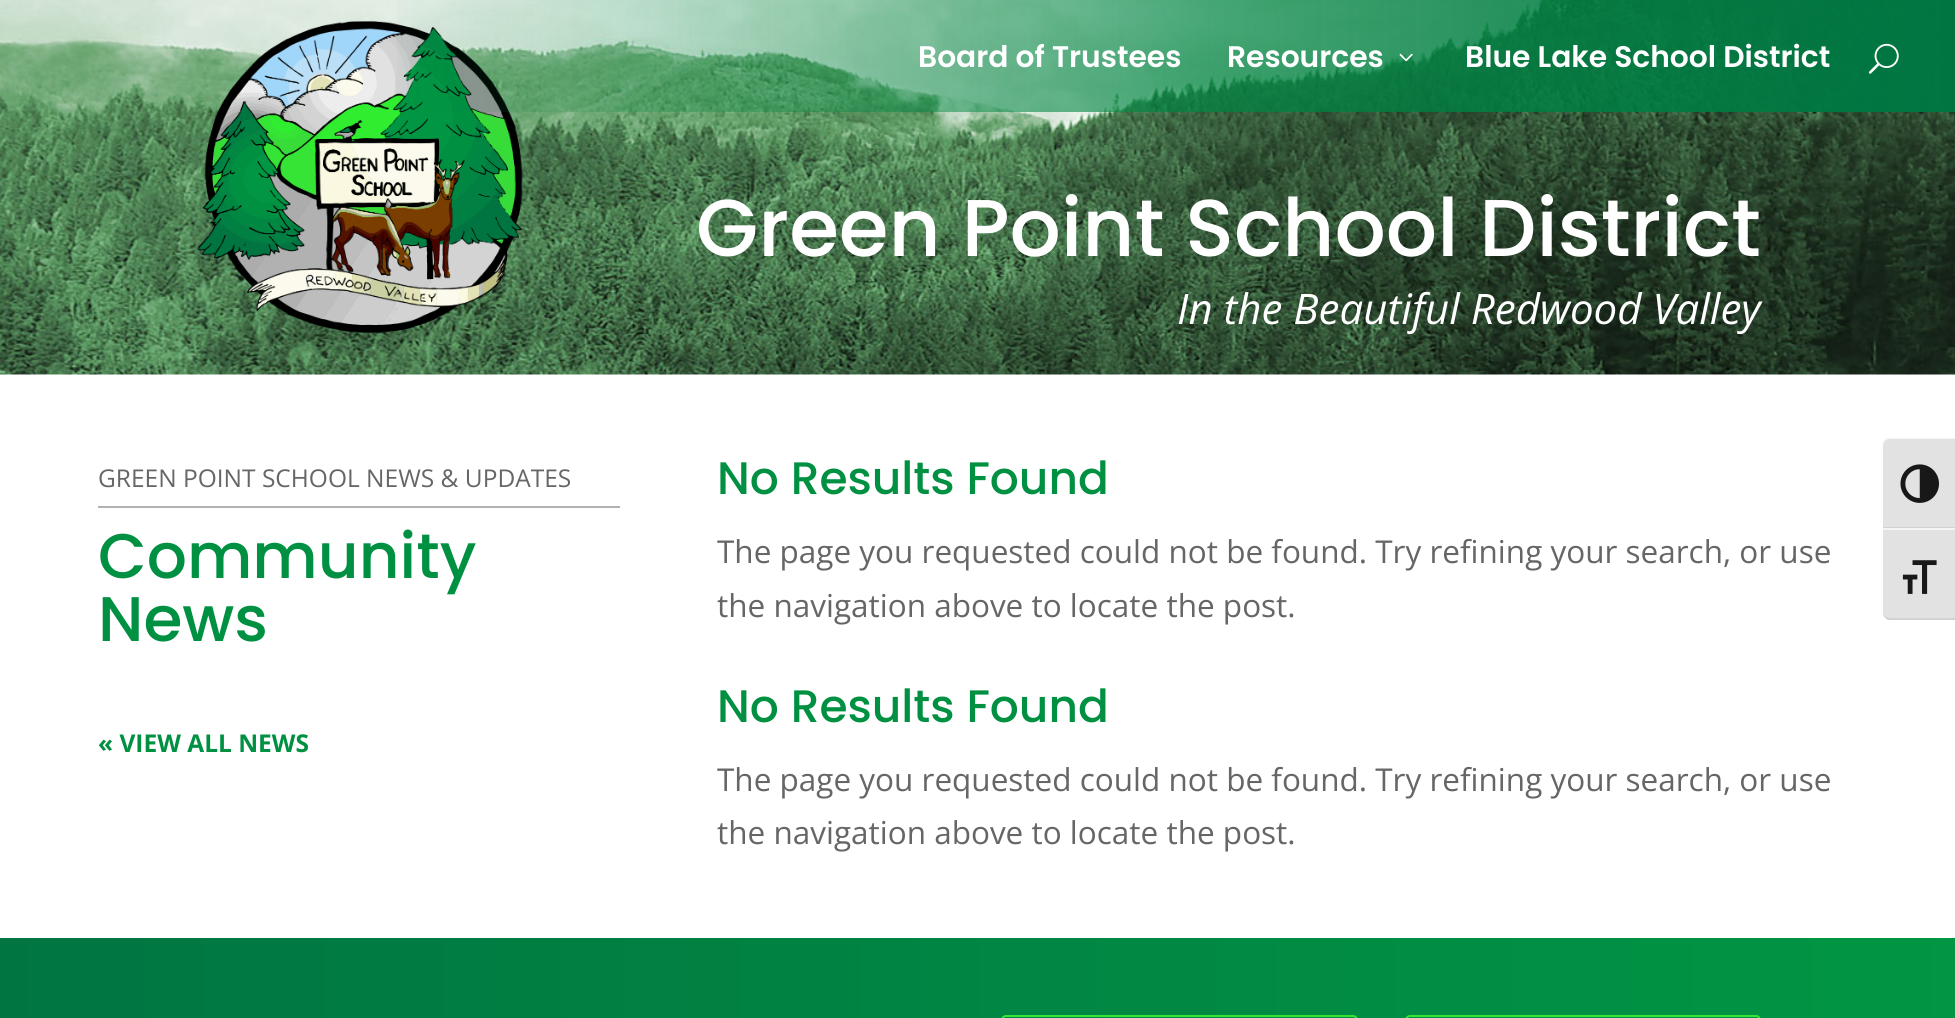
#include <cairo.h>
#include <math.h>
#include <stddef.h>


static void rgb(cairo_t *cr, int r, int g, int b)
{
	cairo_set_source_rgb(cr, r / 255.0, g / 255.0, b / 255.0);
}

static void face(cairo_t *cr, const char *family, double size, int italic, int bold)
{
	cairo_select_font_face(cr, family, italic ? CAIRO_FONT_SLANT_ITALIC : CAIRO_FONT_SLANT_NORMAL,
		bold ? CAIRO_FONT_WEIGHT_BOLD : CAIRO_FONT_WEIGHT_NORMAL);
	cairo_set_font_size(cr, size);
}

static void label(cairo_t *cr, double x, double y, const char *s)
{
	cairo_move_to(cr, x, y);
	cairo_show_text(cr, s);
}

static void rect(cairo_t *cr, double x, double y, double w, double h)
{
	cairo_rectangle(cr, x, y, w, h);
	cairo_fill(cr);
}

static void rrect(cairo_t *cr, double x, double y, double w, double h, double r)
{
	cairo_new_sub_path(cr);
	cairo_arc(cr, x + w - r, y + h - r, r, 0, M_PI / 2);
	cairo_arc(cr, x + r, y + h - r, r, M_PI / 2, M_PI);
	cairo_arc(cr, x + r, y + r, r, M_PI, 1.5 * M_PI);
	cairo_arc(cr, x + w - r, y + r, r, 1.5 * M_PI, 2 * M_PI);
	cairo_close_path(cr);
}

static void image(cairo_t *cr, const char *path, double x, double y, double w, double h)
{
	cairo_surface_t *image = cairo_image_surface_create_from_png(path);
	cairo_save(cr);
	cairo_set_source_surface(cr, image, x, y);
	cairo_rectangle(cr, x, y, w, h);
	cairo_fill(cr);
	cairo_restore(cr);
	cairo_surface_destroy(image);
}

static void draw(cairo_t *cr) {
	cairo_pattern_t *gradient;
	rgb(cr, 255, 255, 255);
	cairo_paint(cr);
	image(cr, "image2.png", 0, 0, 1955, 375);
	image(cr, "image3.png", 197, 21, 326, 313);
	gradient = cairo_pattern_create_linear(0, 56, 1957, 56);
	cairo_pattern_add_color_stop_rgba(gradient, 0.19, 0, 0.522, 0.259, 0);
	cairo_pattern_add_color_stop_rgba(gradient, 0.62, 0, 0.522, 0.259, 0.72);
	cairo_pattern_add_color_stop_rgba(gradient, 1, 0, 0.459, 0.259, 1);
	cairo_set_source(cr, gradient);
	cairo_pattern_destroy(gradient);
	rect(cr, 397, 0, 1558, 112);
	face(cr, "Poppins SemiBold", 29.75, 0, 0);
	rgb(cr, 255, 255, 255);
	label(cr, 918, 67, "Board of Trustees");
	label(cr, 1227, 67, "Resources");
	image(cr, "image0.png", 1399, 53, 14, 9);
	label(cr, 1465, 67, "Blue Lake School District");
	image(cr, "image1.png", 1868, 43, 31, 31);
	face(cr, "Poppins Medium", 80.5, 0, 0);
	label(cr, 696, 256, "Green Point School District");
	face(cr, "Open Sans", 42, 1, 0);
	label(cr, 1177, 324, "In the Beautiful Redwood Valley");
	rgb(cr, 177, 177, 177);
	rect(cr, 98, 506, 522, 2);
	face(cr, "Open Sans", 24.5, 0, 0);
	rgb(cr, 102, 102, 102);
	label(cr, 98, 487, "GREEN POINT SCHOOL NEWS & UPDATES");
	face(cr, "Poppins Medium", 63, 0, 0);
	rgb(cr, 0, 144, 66);
	label(cr, 98, 578, "Community");
	label(cr, 98, 641, "News");
	face(cr, "Open Sans", 24.5, 0, 1);
	label(cr, 98, 752, "« VIEW ALL NEWS");
	face(cr, "Poppins Medium", 45.5, 0, 0);
	label(cr, 717, 494, "No Results Found");
	face(cr, "Open Sans", 31.5, 0, 0);
	rgb(cr, 102, 102, 102);
	label(cr, 717, 563, "The page you requested could not be found. Try refining your search, or use");
	label(cr, 717, 617, "the navigation above to locate the post.");
	face(cr, "Poppins Medium", 45.5, 0, 0);
	rgb(cr, 0, 144, 66);
	label(cr, 717, 722, "No Results Found");
	face(cr, "Open Sans", 31.5, 0, 0);
	rgb(cr, 102, 102, 102);
	label(cr, 717, 791, "The page you requested could not be found. Try refining your search, or use");
	label(cr, 717, 844, "the navigation above to locate the post.");
	gradient = cairo_pattern_create_linear(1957, 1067, 0, 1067);
	cairo_pattern_add_color_stop_rgba(gradient, 0, 0.004, 0.588, 0.263, 1);
	cairo_pattern_add_color_stop_rgba(gradient, 1, 0, 0.459, 0.259, 1);
	cairo_set_source(cr, gradient);
	cairo_pattern_destroy(gradient);
	rect(cr, 0, 938, 1955, 80);
	rrect(cr, 1002, 1016, 355, 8, 4);
	rgb(cr, 53, 228, 53);
	cairo_stroke(cr);
	rrect(cr, 1406, 1016, 354, 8, 4);
	cairo_stroke(cr);
	rgb(cr, 226, 226, 226);
	cairo_new_path(cr);
	cairo_move_to(cr, 1890, 438);
	cairo_line_to(cr, 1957, 438);
	cairo_line_to(cr, 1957, 529);
	cairo_line_to(cr, 1883, 529);
	cairo_line_to(cr, 1883, 445);
	cairo_curve_to(cr, 1883, 441, 1886, 438, 1890, 438);
	cairo_close_path(cr);
	cairo_fill(cr);
	rgb(cr, 245, 245, 245);
	cairo_new_path(cr);
	cairo_move_to(cr, 1890, 438);
	cairo_curve_to(cr, 1886, 438, 1883, 441, 1883, 444);
	cairo_curve_to(cr, 1883, 442, 1886, 439, 1890, 439);
	cairo_line_to(cr, 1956, 439);
	cairo_line_to(cr, 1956, 438);
	cairo_close_path(cr);
	cairo_fill(cr);
	rgb(cr, 210, 210, 210);
	rect(cr, 1883, 527, 72, 1);
	image(cr, "image4.png", 1900, 464, 39, 39);
	rgb(cr, 226, 226, 226);
	cairo_new_path(cr);
	cairo_move_to(cr, 1883, 529);
	cairo_line_to(cr, 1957, 529);
	cairo_line_to(cr, 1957, 620);
	cairo_line_to(cr, 1890, 620);
	cairo_curve_to(cr, 1886, 620, 1883, 617, 1883, 613);
	cairo_close_path(cr);
	cairo_fill(cr);
	rgb(cr, 245, 245, 245);
	rect(cr, 1883, 528, 72, 2);
	rgb(cr, 210, 210, 210);
	cairo_new_path(cr);
	cairo_move_to(cr, 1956, 620);
	cairo_line_to(cr, 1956, 618);
	cairo_line_to(cr, 1890, 618);
	cairo_curve_to(cr, 1886, 618, 1883, 615, 1883, 612);
	cairo_curve_to(cr, 1883, 615, 1885, 618, 1888, 620);
	cairo_close_path(cr);
	cairo_fill(cr);
	image(cr, "image5.png", 1902, 560, 35, 34);
}

int main(void) {
	cairo_surface_t *surface = cairo_image_surface_create(CAIRO_FORMAT_RGB24, 1955, 1018);
	cairo_t *cr = cairo_create(surface);
	cairo_font_options_t *options = cairo_font_options_create();
	cairo_font_options_set_hint_metrics(options, CAIRO_HINT_METRICS_OFF);
	cairo_font_options_set_hint_style(options, CAIRO_HINT_STYLE_NONE);
	cairo_set_font_options(cr, options);
	cairo_set_miter_limit(cr, 4);
	draw(cr);
	cairo_surface_write_to_png(surface, "render.png");
	cairo_font_options_destroy(options);
	cairo_destroy(cr);
	cairo_surface_destroy(surface);
	return 0;
}
